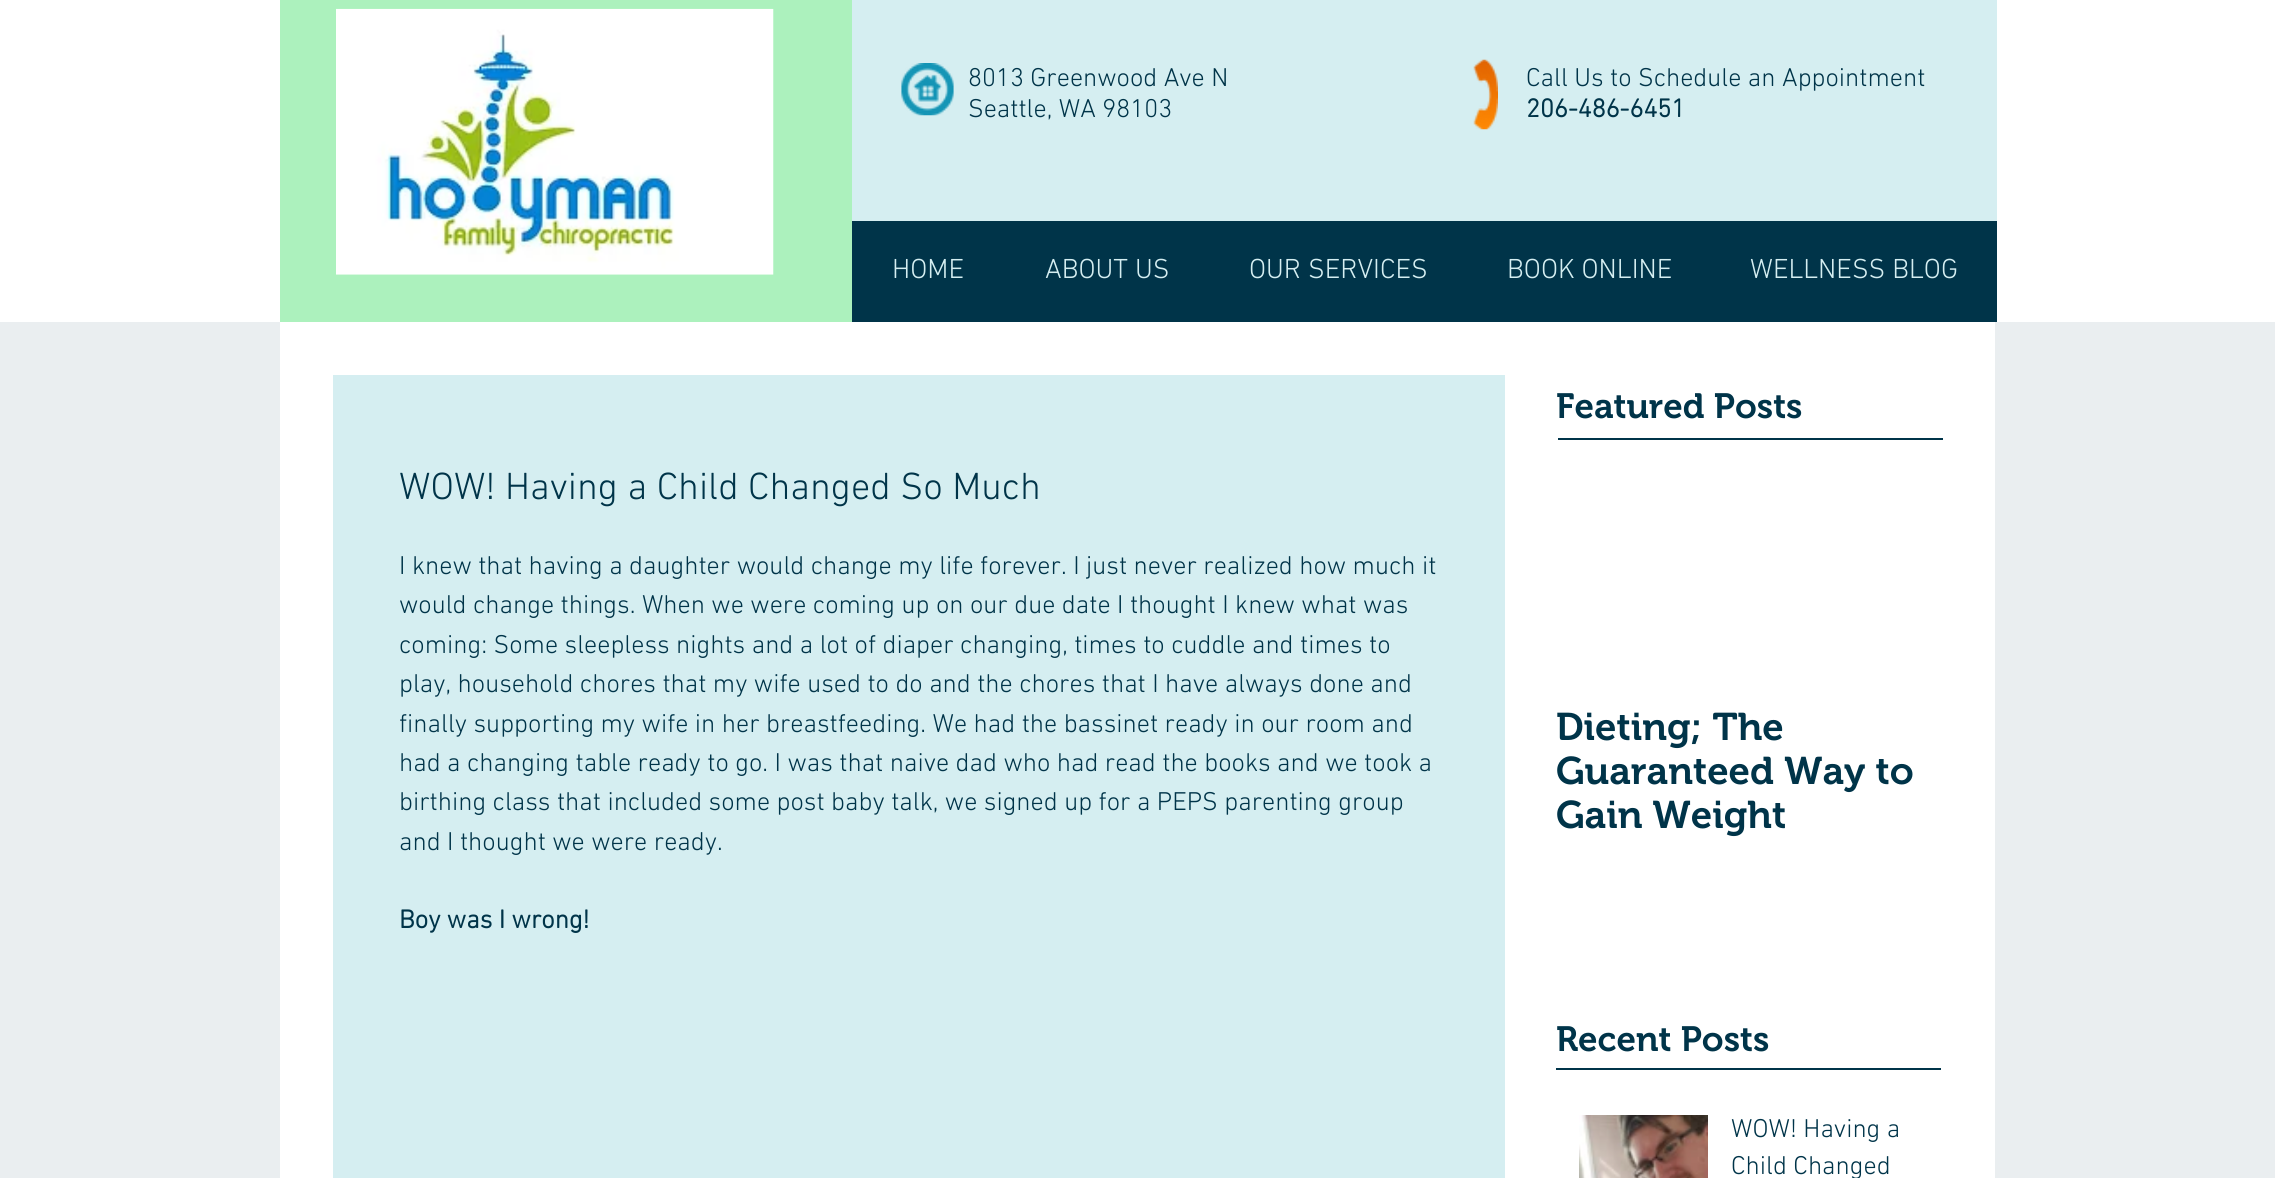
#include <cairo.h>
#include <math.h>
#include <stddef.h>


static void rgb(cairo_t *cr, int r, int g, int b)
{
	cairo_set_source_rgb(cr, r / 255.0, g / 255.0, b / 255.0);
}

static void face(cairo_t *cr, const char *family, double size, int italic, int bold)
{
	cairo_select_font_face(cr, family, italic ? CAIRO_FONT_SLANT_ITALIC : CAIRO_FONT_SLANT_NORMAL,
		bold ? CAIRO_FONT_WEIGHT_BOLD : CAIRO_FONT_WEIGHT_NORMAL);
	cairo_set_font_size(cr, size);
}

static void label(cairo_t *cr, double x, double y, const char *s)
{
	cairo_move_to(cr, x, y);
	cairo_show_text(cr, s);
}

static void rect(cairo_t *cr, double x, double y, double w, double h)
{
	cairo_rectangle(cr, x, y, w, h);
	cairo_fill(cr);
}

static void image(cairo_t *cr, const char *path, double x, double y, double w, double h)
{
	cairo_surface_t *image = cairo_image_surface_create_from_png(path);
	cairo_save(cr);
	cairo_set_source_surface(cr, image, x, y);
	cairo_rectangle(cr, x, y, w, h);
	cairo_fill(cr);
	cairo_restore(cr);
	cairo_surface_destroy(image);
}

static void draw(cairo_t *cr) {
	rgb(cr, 234, 238, 240);
	cairo_paint(cr);
	rgb(cr, 255, 255, 255);
	rect(cr, 0, 0, 2275, 322);
	rgb(cr, 172, 241, 189);
	rect(cr, 280, 0, 572, 322);
	image(cr, "image0.png", 336, 8, 438, 267);
	rgb(cr, 213, 238, 241);
	rect(cr, 852, 0, 1145, 221);
	image(cr, "image1.png", 901, 63, 53, 53);
	face(cr, "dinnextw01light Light", 26.25, 0, 0);
	rgb(cr, 0, 52, 73);
	label(cr, 968, 86, "8013 Greenwood Ave N");
	label(cr, 968, 117, "Seattle, WA 98103");
	image(cr, "image2.png", 1473, 59, 25, 71);
	label(cr, 1526, 86, "Call Us to Schedule an Appointment");
	face(cr, "dinnextw01light", 26.25, 0, 1);
	label(cr, 1526, 117, "206-486-6451");
	rect(cr, 852, 221, 1145, 101);
	face(cr, "dinnextw01light Light", 28, 0, 0);
	rgb(cr, 213, 238, 241);
	label(cr, 892, 278, "HOME");
	label(cr, 1045, 278, "ABOUT US");
	label(cr, 1249, 278, "OUR SERVICES");
	label(cr, 1507, 278, "BOOK ONLINE");
	label(cr, 1750, 278, "WELLNESS BLOG");
	rgb(cr, 255, 255, 255);
	rect(cr, 280, 322, 1715, 856);
	face(cr, "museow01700 SemiBold", 35, 0, 0);
	rgb(cr, 0, 52, 73);
	label(cr, 1556, 418, "Featured Posts");
	rect(cr, 1558, 438, 385, 2);
	rgb(cr, 213, 238, 241);
	rect(cr, 333, 375, 1172, 803);
	face(cr, "dinnextw01light Light", 38.5, 0, 0);
	rgb(cr, 0, 52, 73);
	label(cr, 399, 499, "WOW! Having a Child Changed So Much");
	face(cr, "dinnextw01light Light", 26.25, 0, 0);
	label(cr, 399, 574, "I knew that having a daughter would change my life forever. I just never realized how much it");
	label(cr, 399, 613, "would change things. When we were coming up on our due date I thought I knew what was");
	label(cr, 399, 653, "coming: Some sleepless nights and a lot of diaper changing, times to cuddle and times to");
	label(cr, 399, 692, "play, household chores that my wife used to do and the chores that I have always done and");
	label(cr, 399, 732, "finally supporting my wife in her breastfeeding. We had the bassinet ready in our room and");
	label(cr, 399, 771, "had a changing table ready to go. I was that naive dad who had read the books and we took a");
	label(cr, 399, 810, "birthing class that included some post baby talk, we signed up for a PEPS parenting group");
	label(cr, 399, 850, "and I thought we were ready.");
	face(cr, "dinnextw01light", 26.25, 0, 1);
	label(cr, 399, 928, "Boy was I wrong!");
	face(cr, "museow01700 SemiBold", 38.5, 0, 0);
	label(cr, 1556, 740, "Dieting; The");
	label(cr, 1556, 784, "Guaranteed Way to");
	label(cr, 1556, 828, "Gain Weight");
	face(cr, "museow01700 SemiBold", 35, 0, 0);
	label(cr, 1556, 1051, "Recent Posts");
	rect(cr, 1556, 1068, 385, 2);
	image(cr, "image3.png", 1579, 1115, 129, 63);
	face(cr, "dinnextw01light Light", 26.25, 0, 0);
	label(cr, 1731, 1137, "WOW! Having a");
	label(cr, 1731, 1174, "Child Changed");
}

int main(void) {
	cairo_surface_t *surface = cairo_image_surface_create(CAIRO_FORMAT_RGB24, 2275, 1178);
	cairo_t *cr = cairo_create(surface);
	cairo_font_options_t *options = cairo_font_options_create();
	cairo_font_options_set_hint_metrics(options, CAIRO_HINT_METRICS_OFF);
	cairo_font_options_set_hint_style(options, CAIRO_HINT_STYLE_NONE);
	cairo_set_font_options(cr, options);
	cairo_set_miter_limit(cr, 4);
	draw(cr);
	cairo_surface_write_to_png(surface, "render.png");
	cairo_font_options_destroy(options);
	cairo_destroy(cr);
	cairo_surface_destroy(surface);
	return 0;
}
